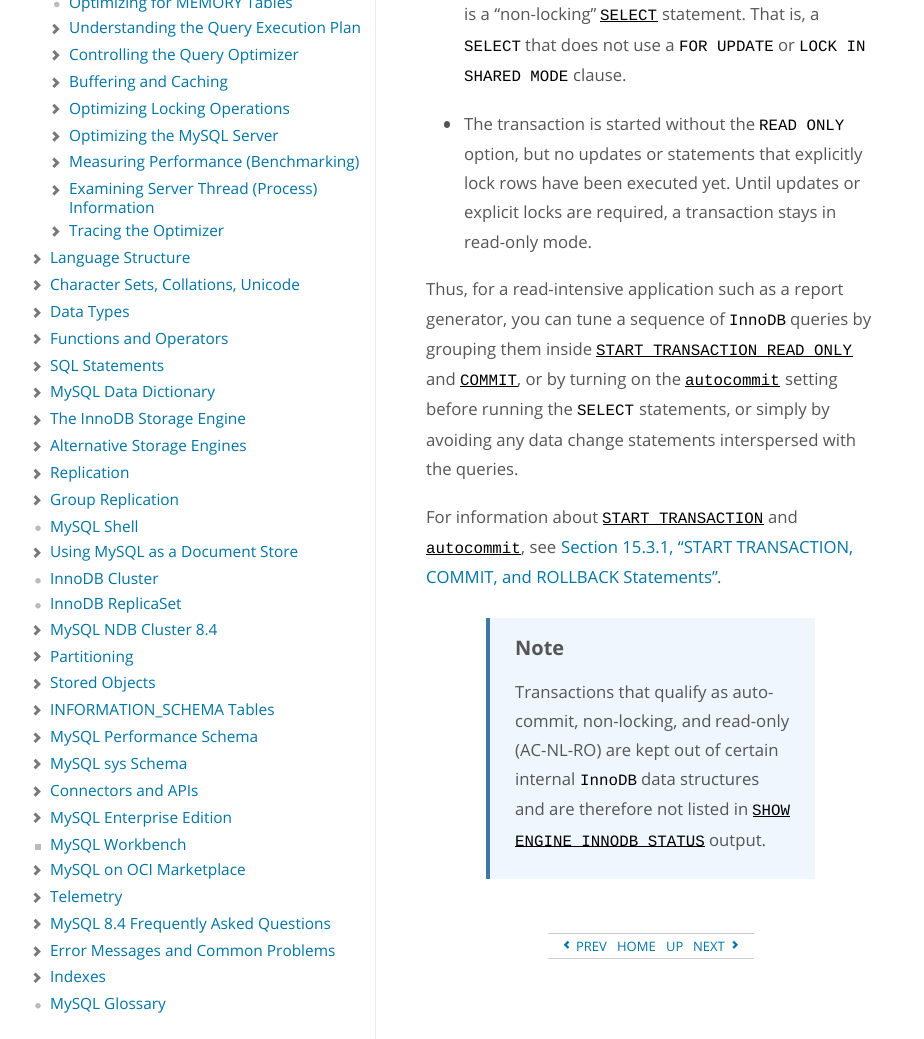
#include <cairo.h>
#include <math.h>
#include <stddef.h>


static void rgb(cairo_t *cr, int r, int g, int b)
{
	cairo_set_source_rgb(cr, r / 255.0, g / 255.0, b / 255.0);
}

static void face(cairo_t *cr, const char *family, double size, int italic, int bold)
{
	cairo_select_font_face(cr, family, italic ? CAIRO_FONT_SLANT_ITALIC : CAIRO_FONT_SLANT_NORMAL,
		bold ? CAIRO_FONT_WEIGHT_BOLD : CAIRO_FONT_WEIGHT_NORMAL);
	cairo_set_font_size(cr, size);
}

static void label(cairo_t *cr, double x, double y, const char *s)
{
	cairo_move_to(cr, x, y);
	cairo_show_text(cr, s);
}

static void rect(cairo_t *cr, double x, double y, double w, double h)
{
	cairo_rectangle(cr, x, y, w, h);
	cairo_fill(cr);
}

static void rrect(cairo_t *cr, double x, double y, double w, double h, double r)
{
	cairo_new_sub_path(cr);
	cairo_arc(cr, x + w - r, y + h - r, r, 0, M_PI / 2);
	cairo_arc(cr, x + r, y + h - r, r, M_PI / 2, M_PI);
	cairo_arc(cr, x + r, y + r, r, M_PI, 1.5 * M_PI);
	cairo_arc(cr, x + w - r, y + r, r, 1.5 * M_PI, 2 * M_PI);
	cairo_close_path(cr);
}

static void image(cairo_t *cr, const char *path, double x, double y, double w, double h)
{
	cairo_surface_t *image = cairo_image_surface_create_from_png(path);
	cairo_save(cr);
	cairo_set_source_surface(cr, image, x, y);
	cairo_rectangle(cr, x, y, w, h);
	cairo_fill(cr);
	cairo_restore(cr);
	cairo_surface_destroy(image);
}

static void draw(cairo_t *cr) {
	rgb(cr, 255, 255, 255);
	cairo_paint(cr);
	rgb(cr, 233, 234, 235);
	rect(cr, 375, 0, 1, 1039);
	image(cr, "image0.png", 54, 1, 6, 7);
	face(cr, "Open Sans", 15.4, 0, 0);
	rgb(cr, 0, 116, 163);
	label(cr, 69, 8, "Optimizing for MEMORY Tables");
	image(cr, "image1.png", 52, 23, 8, 12);
	label(cr, 69, 33, "Understanding the Query Execution Plan");
	image(cr, "image2.png", 52, 50, 8, 11);
	label(cr, 69, 60, "Controlling the Query Optimizer");
	image(cr, "image3.png", 52, 77, 8, 11);
	label(cr, 69, 87, "Buffering and Caching");
	image(cr, "image1.png", 52, 103, 8, 12);
	label(cr, 69, 114, "Optimizing Locking Operations");
	image(cr, "image4.png", 52, 131, 8, 11);
	label(cr, 69, 141, "Optimizing the MySQL Server");
	image(cr, "image3.png", 52, 157, 8, 11);
	label(cr, 69, 167, "Measuring Performance (Benchmarking)");
	image(cr, "image2.png", 52, 185, 8, 11);
	label(cr, 69, 194, "Examining Server Thread (Process)");
	label(cr, 69, 213, "Information");
	image(cr, "image4.png", 52, 226, 8, 11);
	label(cr, 69, 236, "Tracing the Optimizer");
	image(cr, "image5.png", 33, 253, 8, 12);
	label(cr, 50, 263, "Language Structure");
	image(cr, "image6.png", 33, 280, 8, 11);
	label(cr, 50, 290, "Character Sets, Collations, Unicode");
	image(cr, "image7.png", 33, 307, 8, 11);
	label(cr, 50, 317, "Data Types");
	image(cr, "image5.png", 33, 333, 8, 12);
	label(cr, 50, 344, "Functions and Operators");
	image(cr, "image8.png", 33, 361, 8, 11);
	label(cr, 50, 371, "SQL Statements");
	image(cr, "image7.png", 33, 387, 8, 11);
	label(cr, 50, 397, "MySQL Data Dictionary");
	image(cr, "image6.png", 33, 415, 8, 11);
	label(cr, 50, 424, "The InnoDB Storage Engine");
	image(cr, "image8.png", 33, 441, 8, 11);
	label(cr, 50, 451, "Alternative Storage Engines");
	image(cr, "image5.png", 33, 468, 8, 12);
	label(cr, 50, 478, "Replication");
	image(cr, "image6.png", 33, 495, 8, 11);
	label(cr, 50, 505, "Group Replication");
	image(cr, "image9.png", 35, 525, 6, 6);
	label(cr, 50, 532, "MySQL Shell");
	image(cr, "image7.png", 33, 547, 8, 11);
	label(cr, 50, 557, "Using MySQL as a Document Store");
	image(cr, "image10.png", 35, 578, 6, 6);
	label(cr, 50, 584, "InnoDB Cluster");
	image(cr, "image10.png", 35, 603, 6, 6);
	label(cr, 50, 609, "InnoDB ReplicaSet");
	image(cr, "image6.png", 33, 625, 8, 11);
	label(cr, 50, 635, "MySQL NDB Cluster 8.4");
	image(cr, "image8.png", 33, 651, 8, 11);
	label(cr, 50, 662, "Partitioning");
	image(cr, "image5.png", 33, 678, 8, 12);
	label(cr, 50, 688, "Stored Objects");
	image(cr, "image6.png", 33, 705, 8, 11);
	label(cr, 50, 715, "INFORMATION_SCHEMA Tables");
	image(cr, "image7.png", 33, 732, 8, 11);
	label(cr, 50, 742, "MySQL Performance Schema");
	image(cr, "image5.png", 33, 758, 8, 12);
	label(cr, 50, 769, "MySQL sys Schema");
	image(cr, "image8.png", 33, 786, 8, 11);
	label(cr, 50, 796, "Connectors and APIs");
	image(cr, "image7.png", 33, 812, 8, 11);
	label(cr, 50, 823, "MySQL Enterprise Edition");
	rgb(cr, 187, 187, 187);
	rect(cr, 35, 844, 6, 6);
	rgb(cr, 0, 116, 163);
	label(cr, 50, 850, "MySQL Workbench");
	image(cr, "image6.png", 33, 865, 8, 11);
	label(cr, 50, 875, "MySQL on OCI Marketplace");
	image(cr, "image7.png", 33, 892, 8, 11);
	label(cr, 50, 902, "Telemetry");
	image(cr, "image5.png", 33, 918, 8, 12);
	label(cr, 50, 929, "MySQL 8.4 Frequently Asked Questions");
	image(cr, "image8.png", 33, 946, 8, 11);
	label(cr, 50, 956, "Error Messages and Common Problems");
	image(cr, "image7.png", 33, 972, 8, 11);
	label(cr, 50, 982, "Indexes");
	image(cr, "image10.png", 35, 1003, 6, 6);
	label(cr, 50, 1009, "MySQL Glossary");
	face(cr, "Open Sans", 16.7, 0, 0);
	rgb(cr, 85, 85, 85);
	label(cr, 464, 20, "is a “non-locking”");
	face(cr, "Liberation Mono", 15.8, 0, 0);
	rgb(cr, 0, 0, 0);
	label(cr, 600, 20, "SELECT");
	rect(cr, 600, 21, 58, 1);
	face(cr, "Open Sans", 16.7, 0, 0);
	rgb(cr, 85, 85, 85);
	label(cr, 662, 20, "statement. That is, a");
	face(cr, "Liberation Mono", 15.8, 0, 0);
	rgb(cr, 0, 0, 0);
	label(cr, 464, 51, "SELECT");
	face(cr, "Open Sans", 16.7, 0, 0);
	rgb(cr, 85, 85, 85);
	label(cr, 525, 51, "that does not use a");
	face(cr, "Liberation Mono", 15.8, 0, 0);
	rgb(cr, 0, 0, 0);
	label(cr, 679, 51, "FOR UPDATE");
	face(cr, "Open Sans", 16.7, 0, 0);
	rgb(cr, 85, 85, 85);
	label(cr, 778, 51, "or");
	face(cr, "Liberation Mono", 15.8, 0, 0);
	rgb(cr, 0, 0, 0);
	label(cr, 799, 51, "LOCK IN");
	label(cr, 464, 81, "SHARED MODE");
	face(cr, "Open Sans", 16.7, 0, 0);
	rgb(cr, 85, 85, 85);
	label(cr, 573, 81, "clause.");
	rrect(cr, 444, 121, 6, 7, 3);
	cairo_fill(cr);
	label(cr, 464, 130, "The transaction is started without the");
	face(cr, "Liberation Mono", 15.8, 0, 0);
	rgb(cr, 0, 0, 0);
	label(cr, 759, 130, "READ ONLY");
	face(cr, "Open Sans", 16.7, 0, 0);
	rgb(cr, 85, 85, 85);
	label(cr, 464, 160, "option, but no updates or statements that explicitly");
	label(cr, 464, 189, "lock rows have been executed yet. Until updates or");
	label(cr, 464, 218, "explicit locks are required, a transaction stays in");
	label(cr, 464, 248, "read-only mode.");
	label(cr, 426, 295, "Thus, for a read-intensive application such as a report");
	label(cr, 426, 325, "generator, you can tune a sequence of");
	face(cr, "Liberation Mono", 15.8, 0, 0);
	rgb(cr, 0, 0, 0);
	label(cr, 729, 325, "InnoDB");
	face(cr, "Open Sans", 16.7, 0, 0);
	rgb(cr, 85, 85, 85);
	label(cr, 790, 325, "queries by");
	label(cr, 426, 355, "grouping them inside");
	face(cr, "Liberation Mono", 15.8, 0, 0);
	rgb(cr, 0, 0, 0);
	label(cr, 596, 355, "START TRANSACTION READ ONLY");
	rect(cr, 596, 356, 257, 1);
	face(cr, "Open Sans", 16.7, 0, 0);
	rgb(cr, 85, 85, 85);
	label(cr, 426, 385, "and");
	face(cr, "Liberation Mono", 15.8, 0, 0);
	rgb(cr, 0, 0, 0);
	label(cr, 460, 385, "COMMIT");
	rect(cr, 460, 386, 58, 1);
	face(cr, "Open Sans", 16.7, 0, 0);
	rgb(cr, 85, 85, 85);
	label(cr, 517, 385, ", or by turning on the");
	face(cr, "Liberation Mono", 15.8, 0, 0);
	rgb(cr, 0, 0, 0);
	label(cr, 685, 385, "autocommit");
	rect(cr, 685, 386, 95, 1);
	face(cr, "Open Sans", 16.7, 0, 0);
	rgb(cr, 85, 85, 85);
	label(cr, 785, 385, "setting");
	label(cr, 426, 415, "before running the");
	face(cr, "Liberation Mono", 15.8, 0, 0);
	rgb(cr, 0, 0, 0);
	label(cr, 577, 415, "SELECT");
	face(cr, "Open Sans", 16.7, 0, 0);
	rgb(cr, 85, 85, 85);
	label(cr, 639, 415, "statements, or simply by");
	label(cr, 426, 446, "avoiding any data change statements interspersed with");
	label(cr, 426, 475, "the queries.");
	label(cr, 426, 523, "For information about");
	face(cr, "Liberation Mono", 15.8, 0, 0);
	rgb(cr, 0, 0, 0);
	label(cr, 602, 523, "START TRANSACTION");
	rect(cr, 603, 524, 161, 1);
	face(cr, "Open Sans", 16.7, 0, 0);
	rgb(cr, 85, 85, 85);
	label(cr, 768, 523, "and");
	face(cr, "Liberation Mono", 15.8, 0, 0);
	rgb(cr, 0, 0, 0);
	label(cr, 426, 553, "autocommit");
	rect(cr, 426, 554, 95, 1);
	face(cr, "Open Sans", 16.7, 0, 0);
	rgb(cr, 85, 85, 85);
	label(cr, 521, 553, ", see");
	rgb(cr, 0, 116, 163);
	label(cr, 561, 553, "Section 15.3.1, “START TRANSACTION,");
	label(cr, 426, 583, "COMMIT, and ROLLBACK Statements”");
	rgb(cr, 85, 85, 85);
	label(cr, 717, 583, ".");
	rgb(cr, 239, 246, 254);
	rect(cr, 490, 618, 325, 261);
	rgb(cr, 62, 120, 166);
	rect(cr, 486, 618, 4, 261);
	face(cr, "Open Sans", 20, 0, 1);
	rgb(cr, 85, 85, 85);
	label(cr, 515, 655, "Note");
	face(cr, "Open Sans", 16.7, 0, 0);
	label(cr, 515, 698, "Transactions that qualify as auto-");
	label(cr, 515, 727, "commit, non-locking, and");
	label(cr, 715, 727, "read-only");
	label(cr, 515, 756, "(AC-NL-RO) are kept out of certain");
	label(cr, 515, 785, "internal");
	face(cr, "Liberation Mono", 15.8, 0, 0);
	rgb(cr, 0, 0, 0);
	label(cr, 580, 785, "InnoDB");
	face(cr, "Open Sans", 16.7, 0, 0);
	rgb(cr, 85, 85, 85);
	label(cr, 641, 785, "data structures");
	label(cr, 515, 815, "and are therefore not listed in");
	face(cr, "Liberation Mono", 15.8, 0, 0);
	rgb(cr, 0, 0, 0);
	label(cr, 752, 815, "SHOW");
	rect(cr, 753, 816, 37, 1);
	rect(cr, 515, 846, 190, 1);
	label(cr, 515, 846, "ENGINE INNODB STATUS");
	face(cr, "Open Sans", 16.7, 0, 0);
	rgb(cr, 85, 85, 85);
	label(cr, 709, 846, "output.");
	rgb(cr, 204, 204, 204);
	rect(cr, 548, 933, 206, 1);
	rect(cr, 548, 958, 206, 1);
	image(cr, "image11.png", 563, 940, 7, 9);
	face(cr, "Open Sans", 13, 0, 0);
	rgb(cr, 0, 116, 163);
	label(cr, 576, 951, "PREV");
	label(cr, 617, 951, "HOME");
	label(cr, 666, 951, "UP");
	label(cr, 693, 951, "NEXT");
	image(cr, "image12.png", 732, 940, 6, 9);
}

int main(void) {
	cairo_surface_t *surface = cairo_image_surface_create(CAIRO_FORMAT_RGB24, 924, 1039);
	cairo_t *cr = cairo_create(surface);
	cairo_font_options_t *options = cairo_font_options_create();
	cairo_font_options_set_hint_metrics(options, CAIRO_HINT_METRICS_OFF);
	cairo_font_options_set_hint_style(options, CAIRO_HINT_STYLE_NONE);
	cairo_set_font_options(cr, options);
	cairo_set_miter_limit(cr, 4);
	draw(cr);
	cairo_surface_write_to_png(surface, "render.png");
	cairo_font_options_destroy(options);
	cairo_destroy(cr);
	cairo_surface_destroy(surface);
	return 0;
}
